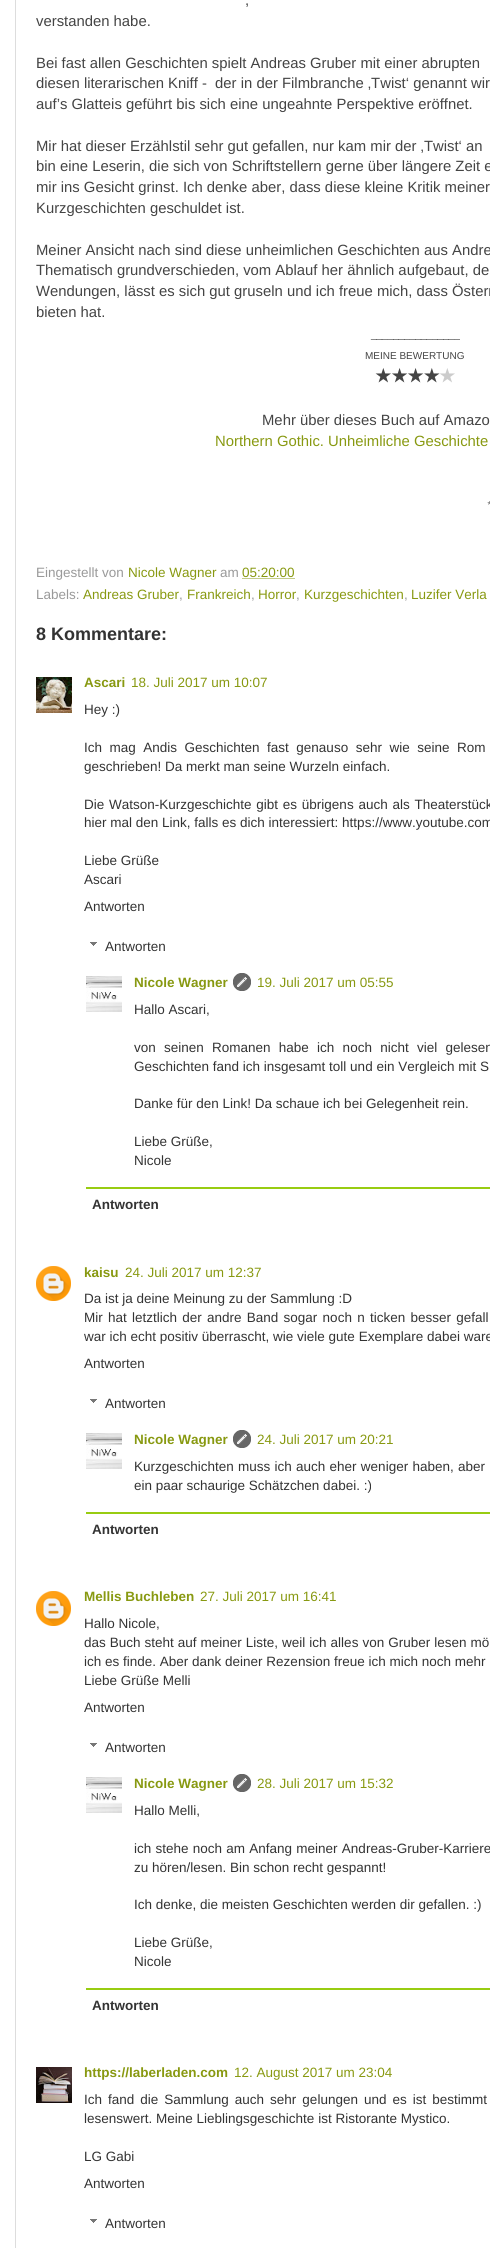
#include <cairo.h>
#include <math.h>
#include <stddef.h>


static void rgb(cairo_t *cr, int r, int g, int b)
{
	cairo_set_source_rgb(cr, r / 255.0, g / 255.0, b / 255.0);
}

static void face(cairo_t *cr, const char *family, double size, int italic, int bold)
{
	cairo_select_font_face(cr, family, italic ? CAIRO_FONT_SLANT_ITALIC : CAIRO_FONT_SLANT_NORMAL,
		bold ? CAIRO_FONT_WEIGHT_BOLD : CAIRO_FONT_WEIGHT_NORMAL);
	cairo_set_font_size(cr, size);
}

static void label(cairo_t *cr, double x, double y, const char *s)
{
	cairo_move_to(cr, x, y);
	cairo_show_text(cr, s);
}

static void tracked(cairo_t *cr, double x, double y, const char *s, double letter, double word)
{
	cairo_move_to(cr, x, y);
	while (*s) {
		char ch[5] = {0};
		int n = 0;
		do ch[n++] = *s++; while ((*s & 0xC0) == 0x80);
		cairo_show_text(cr, ch);
		cairo_rel_move_to(cr, letter + word * (*ch == ' '), 0);
	}
}

static void rect(cairo_t *cr, double x, double y, double w, double h)
{
	cairo_rectangle(cr, x, y, w, h);
	cairo_fill(cr);
}

static void image(cairo_t *cr, const char *path, double x, double y, double w, double h)
{
	cairo_surface_t *image = cairo_image_surface_create_from_png(path);
	cairo_save(cr);
	cairo_set_source_surface(cr, image, x, y);
	cairo_rectangle(cr, x, y, w, h);
	cairo_fill(cr);
	cairo_restore(cr);
	cairo_surface_destroy(image);
}

static void draw(cairo_t *cr) {
	rgb(cr, 255, 255, 255);
	cairo_paint(cr);
	cairo_rectangle(cr, 15.5, -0.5, 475, 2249);
	rgb(cr, 221, 221, 221);
	cairo_set_line_width(cr, 1);
	cairo_stroke(cr);
	face(cr, "Liberation Sans", 14.85, 0, 0);
	rgb(cr, 68, 68, 68);
	label(cr, 245, 5, ",");
	label(cr, 36, 26, "verstanden habe.");
	label(cr, 36, 68, "Bei fast allen Geschichten spielt Andreas Gruber mit einer abrupten");
	label(cr, 36, 88, "diesen literarischen Kniff -  der in der Filmbranche ‚Twist‘ genannt wir");
	label(cr, 36, 109, "auf’s Glatteis geführt bis sich eine ungeahnte Perspektive eröffnet.");
	label(cr, 36, 151, "Mir hat dieser Erzählstil sehr gut gefallen, nur kam mir der ‚Twist‘ an");
	label(cr, 36, 171, "bin eine Leserin, die sich von Schriftstellern gerne über längere Zeit e");
	label(cr, 36, 192, "mir ins Gesicht grinst. Ich denke aber, dass diese kleine Kritik meiner");
	label(cr, 36, 213, "Kurzgeschichten geschuldet ist.");
	label(cr, 36, 255, "Meiner Ansicht nach sind diese unheimlichen Geschichten aus Andre");
	label(cr, 36, 275, "Thematisch grundverschieden, vom Ablauf her ähnlich aufgebaut, de");
	label(cr, 36, 296, "Wendungen, lässt es sich gut gruseln und ich freue mich, dass Österr");
	label(cr, 36, 317, "bieten hat.");
	face(cr, "Liberation Sans", 10, 0, 0);
	label(cr, 371, 338, "________________");
	label(cr, 365, 359, "MEINE BEWERTUNG");
	face(cr, "DejaVu Sans", 18, 0, 1);
	label(cr, 375, 382, "★★★★");
	rgb(cr, 204, 204, 204);
	label(cr, 439, 382, "★");
	face(cr, "Liberation Sans", 14.85, 0, 0);
	rgb(cr, 68, 68, 68);
	label(cr, 262, 425, "Mehr über dieses Buch auf Amazo");
	rgb(cr, 136, 153, 17);
	label(cr, 215, 446, "Northern Gothic. Unheimliche Geschichte");
	face(cr, "Liberation Sans", 10, 1, 0);
	rgb(cr, 102, 102, 102);
	label(cr, 487, 508, "*");
	face(cr, "Liberation Sans", 13.5, 0, 0);
	rgb(cr, 153, 153, 153);
	label(cr, 36, 577, "Eingestellt von");
	rgb(cr, 136, 153, 17);
	label(cr, 128, 577, "Nicole Wagner");
	rgb(cr, 153, 153, 153);
	label(cr, 220, 577, "am");
	rgb(cr, 136, 153, 17);
	label(cr, 242, 577, "05:20:00");
	cairo_new_path(cr);
	cairo_move_to(cr, 242.5, 578.5);
	cairo_line_to(cr, 295, 578.5);
	cairo_set_dash(cr, (double[]){1, 1}, 2, 0);
	cairo_stroke(cr);
	rgb(cr, 153, 153, 153);
	label(cr, 36, 599, "Labels:");
	rgb(cr, 136, 153, 17);
	label(cr, 83, 599, "Andreas Gruber");
	rgb(cr, 153, 153, 153);
	label(cr, 179, 599, ",");
	rgb(cr, 136, 153, 17);
	label(cr, 187, 599, "Frankreich");
	rgb(cr, 153, 153, 153);
	label(cr, 251, 599, ",");
	rgb(cr, 136, 153, 17);
	label(cr, 258, 599, "Horror");
	rgb(cr, 153, 153, 153);
	label(cr, 296, 599, ",");
	rgb(cr, 136, 153, 17);
	label(cr, 304, 599, "Kurzgeschichten");
	rgb(cr, 153, 153, 153);
	label(cr, 404, 599, ",");
	rgb(cr, 136, 153, 17);
	label(cr, 411, 599, "Luzifer Verla");
	face(cr, "Liberation Sans", 18, 0, 1);
	rgb(cr, 51, 51, 51);
	label(cr, 36, 640, "8 Kommentare:");
	image(cr, "image0.png", 36, 677, 36, 36);
	face(cr, "Liberation Sans", 13.5, 0, 1);
	rgb(cr, 136, 153, 17);
	label(cr, 84, 687, "Ascari");
	face(cr, "Liberation Sans", 13.5, 0, 0);
	label(cr, 131, 687, "18. Juli 2017 um 10:07");
	rgb(cr, 51, 51, 51);
	label(cr, 84, 714, "Hey :)");
	tracked(cr, 84, 752, "Ich mag Andis Geschichten fast genauso sehr wie seine Rom", 0, 3.75);
	label(cr, 84, 771, "geschrieben! Da merkt man seine Wurzeln einfach.");
	tracked(cr, 84, 809, "Die Watson-Kurzgeschichte gibt es übrigens auch als Theaterstück", 0, 1);
	label(cr, 84, 827, "hier mal den Link, falls es dich interessiert: https://www.youtube.com");
	label(cr, 84, 865, "Liebe Grüße");
	label(cr, 84, 884, "Ascari");
	label(cr, 84, 911, "Antworten");
	image(cr, "image1.png", 90, 942, 7, 4);
	label(cr, 105, 951, "Antworten");
	image(cr, "image2.png", 86, 976, 36, 36);
	face(cr, "Liberation Sans", 13.5, 0, 1);
	rgb(cr, 136, 153, 17);
	label(cr, 134, 987, "Nicole Wagner");
	image(cr, "image3.png", 233, 973, 18, 18);
	face(cr, "Liberation Sans", 13.5, 0, 0);
	label(cr, 257, 987, "19. Juli 2017 um 05:55");
	rgb(cr, 51, 51, 51);
	label(cr, 134, 1014, "Hallo Ascari,");
	tracked(cr, 134, 1052, "von seinen Romanen habe ich noch nicht viel gelesen", 0, 4.5);
	label(cr, 134, 1071, "Geschichten fand ich insgesamt toll und ein Vergleich mit S");
	label(cr, 134, 1108, "Danke für den Link! Da schaue ich bei Gelegenheit rein.");
	label(cr, 134, 1146, "Liebe Grüße,");
	label(cr, 134, 1165, "Nicole");
	rgb(cr, 152, 204, 17);
	rect(cr, 86, 1187, 404, 2);
	face(cr, "Liberation Sans", 13.5, 0, 1);
	rgb(cr, 51, 51, 51);
	label(cr, 92, 1209, "Antworten");
	image(cr, "image4.png", 36, 1266, 35, 35);
	rgb(cr, 136, 153, 17);
	label(cr, 84, 1277, "kaisu");
	face(cr, "Liberation Sans", 13.5, 0, 0);
	label(cr, 125, 1277, "24. Juli 2017 um 12:37");
	rgb(cr, 51, 51, 51);
	label(cr, 84, 1303, "Da ist ja deine Meinung zu der Sammlung :D");
	tracked(cr, 84, 1322, "Mir hat letztlich der andre Band sogar noch n ticken besser gefall", 0, 1.5);
	label(cr, 84, 1341, "war ich echt positiv überrascht, wie viele gute Exemplare dabei ware");
	label(cr, 84, 1368, "Antworten");
	image(cr, "image1.png", 90, 1399, 7, 4);
	label(cr, 105, 1408, "Antworten");
	image(cr, "image2.png", 86, 1433, 36, 36);
	face(cr, "Liberation Sans", 13.5, 0, 1);
	rgb(cr, 136, 153, 17);
	label(cr, 134, 1444, "Nicole Wagner");
	image(cr, "image3.png", 233, 1430, 18, 18);
	face(cr, "Liberation Sans", 13.5, 0, 0);
	label(cr, 257, 1444, "24. Juli 2017 um 20:21");
	rgb(cr, 51, 51, 51);
	tracked(cr, 134, 1471, "Kurzgeschichten muss ich auch eher weniger haben, aber", 0, 0.5);
	label(cr, 134, 1490, "ein paar schaurige Schätzchen dabei. :)");
	rgb(cr, 152, 204, 17);
	rect(cr, 86, 1512, 404, 2);
	face(cr, "Liberation Sans", 13.5, 0, 1);
	rgb(cr, 51, 51, 51);
	label(cr, 92, 1534, "Antworten");
	image(cr, "image4.png", 36, 1591, 35, 35);
	rgb(cr, 136, 153, 17);
	label(cr, 84, 1601, "Mellis Buchleben");
	face(cr, "Liberation Sans", 13.5, 0, 0);
	label(cr, 200, 1601, "27. Juli 2017 um 16:41");
	rgb(cr, 51, 51, 51);
	label(cr, 84, 1628, "Hallo Nicole,");
	tracked(cr, 84, 1647, "das Buch steht auf meiner Liste, weil ich alles von Gruber lesen mö", 0, 0.25);
	label(cr, 84, 1666, "ich es finde. Aber dank deiner Rezension freue ich mich noch mehr");
	label(cr, 84, 1685, "Liebe Grüße Melli");
	label(cr, 84, 1712, "Antworten");
	image(cr, "image1.png", 90, 1743, 7, 4);
	label(cr, 105, 1752, "Antworten");
	image(cr, "image2.png", 86, 1777, 36, 36);
	face(cr, "Liberation Sans", 13.5, 0, 1);
	rgb(cr, 136, 153, 17);
	label(cr, 134, 1788, "Nicole Wagner");
	image(cr, "image3.png", 233, 1774, 18, 18);
	face(cr, "Liberation Sans", 13.5, 0, 0);
	label(cr, 257, 1788, "28. Juli 2017 um 15:32");
	rgb(cr, 51, 51, 51);
	label(cr, 134, 1815, "Hallo Melli,");
	tracked(cr, 134, 1853, "ich stehe noch am Anfang meiner Andreas-Gruber-Karriere", 0, 0.5);
	label(cr, 134, 1872, "zu hören/lesen. Bin schon recht gespannt!");
	label(cr, 134, 1909, "Ich denke, die meisten Geschichten werden dir gefallen. :)");
	label(cr, 134, 1947, "Liebe Grüße,");
	label(cr, 134, 1966, "Nicole");
	rgb(cr, 152, 204, 17);
	rect(cr, 86, 1988, 404, 2);
	face(cr, "Liberation Sans", 13.5, 0, 1);
	rgb(cr, 51, 51, 51);
	label(cr, 92, 2010, "Antworten");
	image(cr, "image5.png", 36, 2067, 36, 36);
	rgb(cr, 136, 153, 17);
	label(cr, 84, 2077, "https://laberladen.com");
	face(cr, "Liberation Sans", 13.5, 0, 0);
	label(cr, 234, 2077, "12. August 2017 um 23:04");
	rgb(cr, 51, 51, 51);
	tracked(cr, 84, 2104, "Ich fand die Sammlung auch sehr gelungen und es ist bestimmt", 0, 2.25);
	label(cr, 84, 2123, "lesenswert. Meine Lieblingsgeschichte ist Ristorante Mystico.");
	label(cr, 84, 2161, "LG Gabi");
	label(cr, 84, 2188, "Antworten");
	image(cr, "image1.png", 90, 2219, 7, 4);
	label(cr, 105, 2228, "Antworten");
}

int main(void) {
	cairo_surface_t *surface = cairo_image_surface_create(CAIRO_FORMAT_RGB24, 490, 2248);
	cairo_t *cr = cairo_create(surface);
	cairo_font_options_t *options = cairo_font_options_create();
	cairo_font_options_set_hint_metrics(options, CAIRO_HINT_METRICS_OFF);
	cairo_font_options_set_hint_style(options, CAIRO_HINT_STYLE_NONE);
	cairo_set_font_options(cr, options);
	cairo_set_miter_limit(cr, 4);
	draw(cr);
	cairo_surface_write_to_png(surface, "render.png");
	cairo_font_options_destroy(options);
	cairo_destroy(cr);
	cairo_surface_destroy(surface);
	return 0;
}
